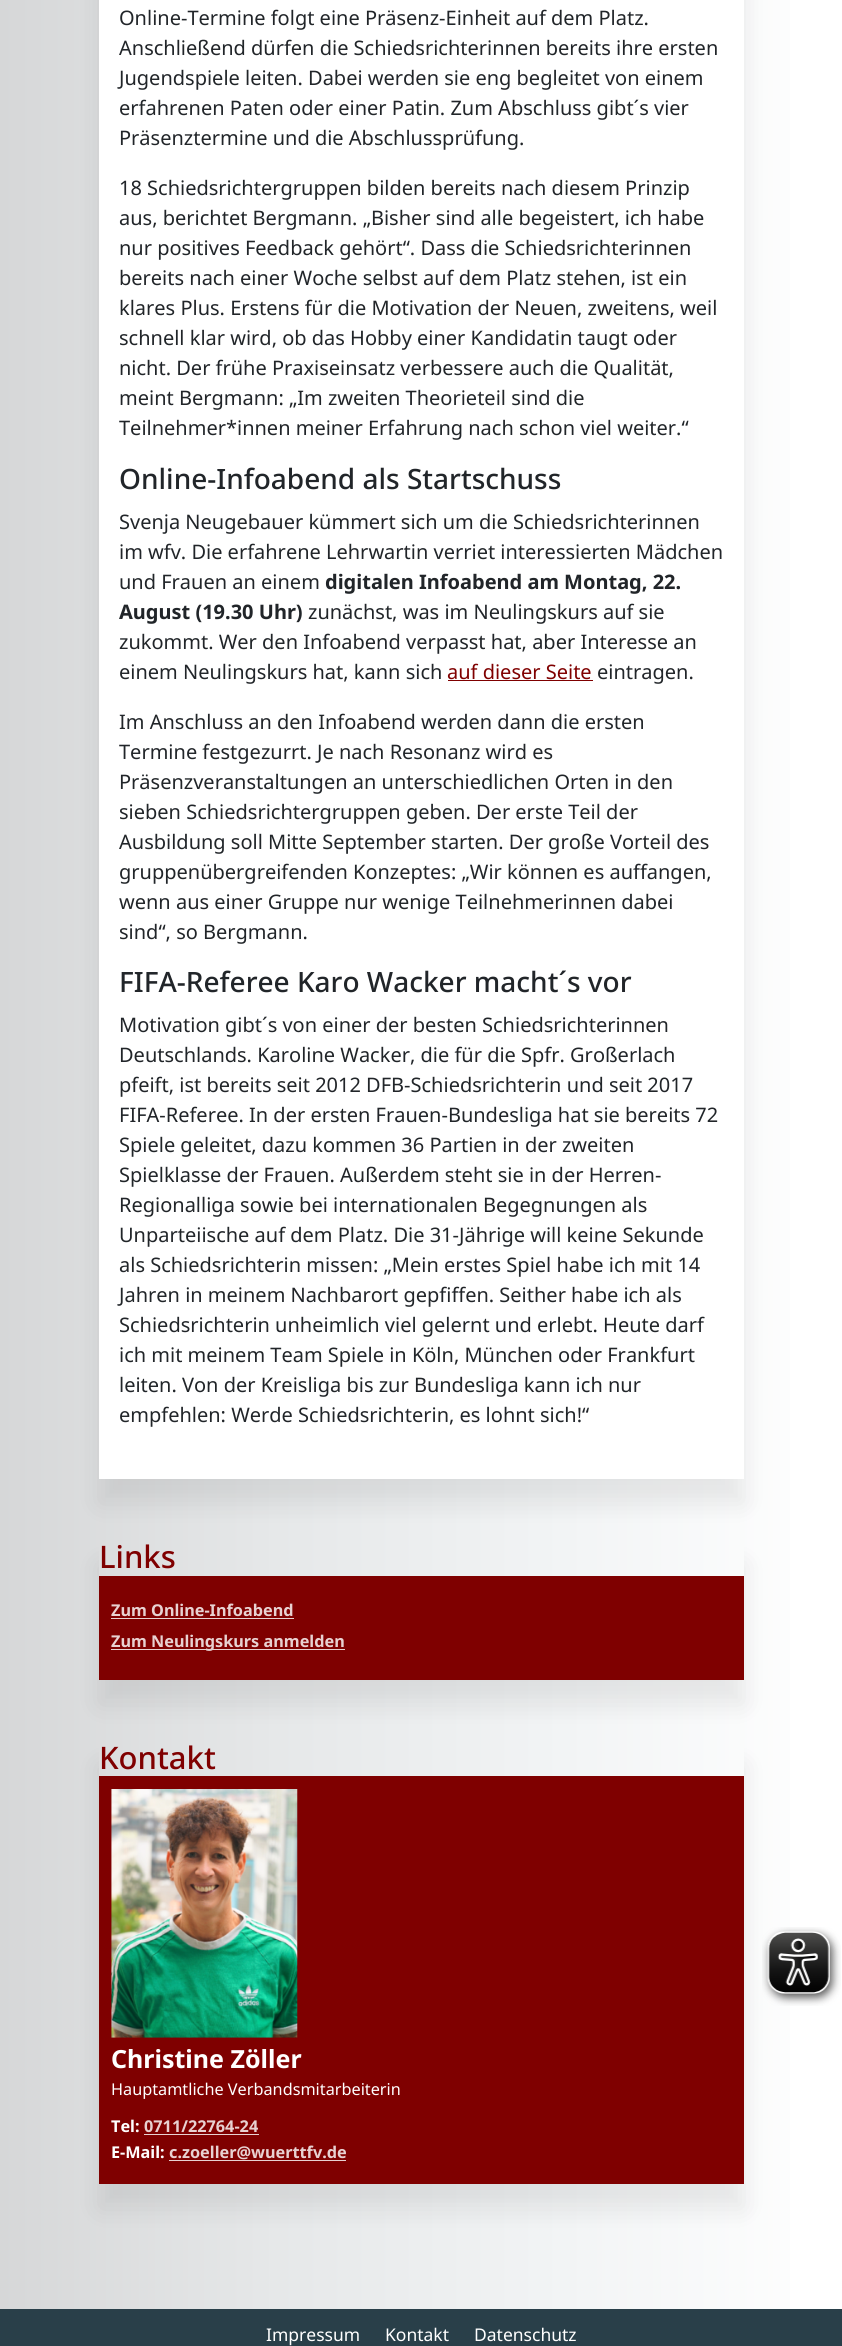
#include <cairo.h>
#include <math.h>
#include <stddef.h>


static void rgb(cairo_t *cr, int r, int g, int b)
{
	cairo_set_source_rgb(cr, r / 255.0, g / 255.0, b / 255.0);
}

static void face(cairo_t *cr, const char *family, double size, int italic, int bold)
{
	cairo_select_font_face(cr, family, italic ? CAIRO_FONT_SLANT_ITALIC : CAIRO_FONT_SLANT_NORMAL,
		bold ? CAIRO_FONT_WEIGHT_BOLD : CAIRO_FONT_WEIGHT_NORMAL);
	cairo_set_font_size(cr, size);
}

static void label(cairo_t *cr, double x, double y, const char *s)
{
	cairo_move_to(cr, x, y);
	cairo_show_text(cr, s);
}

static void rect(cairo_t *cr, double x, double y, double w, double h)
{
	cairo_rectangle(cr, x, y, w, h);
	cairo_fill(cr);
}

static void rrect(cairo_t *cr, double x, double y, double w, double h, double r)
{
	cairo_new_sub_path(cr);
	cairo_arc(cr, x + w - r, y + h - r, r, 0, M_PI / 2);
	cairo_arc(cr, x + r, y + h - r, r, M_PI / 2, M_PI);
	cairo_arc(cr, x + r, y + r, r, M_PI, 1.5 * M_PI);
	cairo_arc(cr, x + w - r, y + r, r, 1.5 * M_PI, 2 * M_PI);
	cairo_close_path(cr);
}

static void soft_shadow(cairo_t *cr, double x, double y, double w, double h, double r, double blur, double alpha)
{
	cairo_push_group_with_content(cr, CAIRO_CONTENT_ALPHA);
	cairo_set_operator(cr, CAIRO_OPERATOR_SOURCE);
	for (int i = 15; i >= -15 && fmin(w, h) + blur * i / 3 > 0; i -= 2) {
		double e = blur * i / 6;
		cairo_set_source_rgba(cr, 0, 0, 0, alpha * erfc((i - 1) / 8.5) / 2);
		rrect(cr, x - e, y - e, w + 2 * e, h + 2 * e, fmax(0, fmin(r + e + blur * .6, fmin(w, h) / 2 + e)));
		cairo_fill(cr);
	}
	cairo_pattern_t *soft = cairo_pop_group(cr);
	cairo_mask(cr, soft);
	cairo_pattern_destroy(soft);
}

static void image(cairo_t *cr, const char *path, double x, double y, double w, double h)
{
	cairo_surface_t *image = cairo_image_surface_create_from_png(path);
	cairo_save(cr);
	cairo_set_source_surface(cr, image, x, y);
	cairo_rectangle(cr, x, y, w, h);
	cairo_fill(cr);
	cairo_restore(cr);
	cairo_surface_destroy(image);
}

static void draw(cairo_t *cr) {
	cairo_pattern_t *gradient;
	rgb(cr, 255, 255, 255);
	cairo_paint(cr);
	gradient = cairo_pattern_create_linear(0, 1173, 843, 1173);
	cairo_pattern_add_color_stop_rgba(gradient, 0, 0.839, 0.843, 0.847, 1);
	cairo_pattern_add_color_stop_rgba(gradient, 0.33, 0.902, 0.91, 0.914, 1);
	cairo_pattern_add_color_stop_rgba(gradient, 0.67, 0.949, 0.957, 0.961, 1);
	cairo_pattern_add_color_stop_rgba(gradient, 1, 1, 1, 1, 1);
	cairo_set_source(cr, gradient);
	cairo_pattern_destroy(gradient);
	rect(cr, 0, 0, 790, 2309);
	rgb(cr, 0, 0, 0);
	soft_shadow(cr, 99, -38, 645, 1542, 0, 12.5, 0.08);
	rgb(cr, 255, 255, 255);
	rect(cr, 99, 0, 645, 1479);
	face(cr, "Noto Sans", 20, 0, 0);
	rgb(cr, 33, 37, 41);
	label(cr, 119, 25, "Online-Termine folgt eine Präsenz-Einheit auf dem Platz.");
	label(cr, 119, 55, "Anschließend dürfen die Schiedsrichterinnen bereits ihre ersten");
	label(cr, 119, 85, "Jugendspiele leiten. Dabei werden sie eng begleitet von einem");
	label(cr, 119, 115, "erfahrenen Paten oder einer Patin. Zum Abschluss gibt´s vier");
	label(cr, 119, 145, "Präsenztermine und die Abschlussprüfung.");
	label(cr, 119, 195, "18 Schiedsrichtergruppen bilden bereits nach diesem Prinzip");
	label(cr, 119, 225, "aus, berichtet Bergmann. „Bisher sind alle begeistert, ich habe");
	label(cr, 119, 255, "nur positives Feedback gehört“. Dass die Schiedsrichterinnen");
	label(cr, 119, 285, "bereits nach einer Woche selbst auf dem Platz stehen, ist ein");
	label(cr, 119, 315, "klares Plus. Erstens für die Motivation der Neuen, zweitens, weil");
	label(cr, 119, 345, "schnell klar wird, ob das Hobby einer Kandidatin taugt oder");
	label(cr, 119, 375, "nicht. Der frühe Praxiseinsatz verbessere auch die Qualität,");
	label(cr, 119, 405, "meint Bergmann: „Im zweiten Theorieteil sind die");
	label(cr, 119, 435, "Teilnehmer*innen meiner Erfahrung nach schon viel weiter.“");
	face(cr, "Noto Sans Medium", 28, 0, 0);
	label(cr, 119, 489, "Online-Infoabend als Startschuss");
	face(cr, "Noto Sans", 20, 0, 0);
	label(cr, 119, 529, "Svenja Neugebauer kümmert sich um die Schiedsrichterinnen");
	label(cr, 119, 559, "im wfv. Die erfahrene Lehrwartin verriet interessierten Mädchen");
	label(cr, 119, 589, "und Frauen an einem");
	face(cr, "Noto Sans", 20, 0, 1);
	label(cr, 325, 589, "digitalen Infoabend am Montag, 22.");
	label(cr, 119, 619, "August (19.30 Uhr)");
	face(cr, "Noto Sans", 20, 0, 0);
	label(cr, 308, 619, "zunächst, was im Neulingskurs auf sie");
	label(cr, 119, 649, "zukommt. Wer den Infoabend verpasst hat, aber Interesse an");
	label(cr, 119, 679, "einem Neulingskurs hat, kann sich");
	rgb(cr, 127, 0, 0);
	label(cr, 447, 679, "auf dieser Seite");
	rect(cr, 448, 680, 145, 1);
	rgb(cr, 33, 37, 41);
	label(cr, 597, 679, "eintragen.");
	label(cr, 119, 729, "Im Anschluss an den Infoabend werden dann die ersten");
	label(cr, 119, 759, "Termine festgezurrt. Je nach Resonanz wird es");
	label(cr, 119, 789, "Präsenzveranstaltungen an unterschiedlichen Orten in den");
	label(cr, 119, 819, "sieben Schiedsrichtergruppen geben. Der erste Teil der");
	label(cr, 119, 849, "Ausbildung soll Mitte September starten. Der große Vorteil des");
	label(cr, 119, 879, "gruppenübergreifenden Konzeptes: „Wir können es auffangen,");
	label(cr, 119, 909, "wenn aus einer Gruppe nur wenige Teilnehmerinnen dabei");
	label(cr, 119, 939, "sind“, so Bergmann.");
	face(cr, "Noto Sans Medium", 28, 0, 0);
	label(cr, 119, 992, "FIFA-Referee Karo Wacker macht´s vor");
	face(cr, "Noto Sans", 20, 0, 0);
	label(cr, 119, 1032, "Motivation gibt´s von einer der besten Schiedsrichterinnen");
	label(cr, 119, 1062, "Deutschlands. Karoline Wacker, die für die Spfr. Großerlach");
	label(cr, 119, 1092, "pfeift, ist bereits seit 2012 DFB-Schiedsrichterin und seit 2017");
	label(cr, 119, 1122, "FIFA-Referee. In der ersten Frauen-Bundesliga hat sie bereits 72");
	label(cr, 119, 1152, "Spiele geleitet, dazu kommen 36 Partien in der zweiten");
	label(cr, 119, 1182, "Spielklasse der Frauen. Außerdem steht sie in der Herren-");
	label(cr, 119, 1212, "Regionalliga sowie bei internationalen Begegnungen als");
	label(cr, 119, 1242, "Unparteiische auf dem Platz. Die 31-Jährige will keine Sekunde");
	label(cr, 119, 1272, "als Schiedsrichterin missen: „Mein erstes Spiel habe ich mit 14");
	label(cr, 119, 1302, "Jahren in meinem Nachbarort gepfiffen. Seither habe ich als");
	label(cr, 119, 1332, "Schiedsrichterin unheimlich viel gelernt und erlebt. Heute darf");
	label(cr, 119, 1362, "ich mit meinem Team Spiele in Köln, München oder Frankfurt");
	label(cr, 119, 1392, "leiten. Von der Kreisliga bis zur Bundesliga kann ich nur");
	label(cr, 119, 1422, "empfehlen: Werde Schiedsrichterin, es lohnt sich!“");
	cairo_save(cr);
	cairo_set_fill_rule(cr, CAIRO_FILL_RULE_EVEN_ODD);
	cairo_new_path(cr);
	cairo_move_to(cr, 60, 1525);
	cairo_line_to(cr, 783, 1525);
	cairo_line_to(cr, 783, 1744);
	cairo_line_to(cr, 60, 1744);
	cairo_close_path(cr);
	cairo_move_to(cr, 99, 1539);
	cairo_line_to(cr, 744, 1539);
	cairo_line_to(cr, 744, 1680);
	cairo_line_to(cr, 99, 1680);
	cairo_close_path(cr);
	cairo_clip(cr);
	rgb(cr, 0, 0, 0);
	soft_shadow(cr, 99, 1564, 645, 141, 0, 12.5, 0.08);
	cairo_restore(cr);
	face(cr, "Noto Sans Medium", 31, 0, 0);
	rgb(cr, 127, 0, 0);
	label(cr, 99, 1568, "Links");
	rect(cr, 99, 1576, 645, 104);
	face(cr, "Noto Sans", 16.25, 0, 1);
	rgb(cr, 232, 209, 209);
	label(cr, 111, 1616, "Zum Online-Infoabend");
	rect(cr, 111, 1618, 183, 1);
	rect(cr, 111, 1649, 234, 1);
	label(cr, 111, 1647, "Zum Neulingskurs anmelden");
	cairo_save(cr);
	cairo_set_fill_rule(cr, CAIRO_FILL_RULE_EVEN_ODD);
	cairo_new_path(cr);
	cairo_move_to(cr, 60, 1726);
	cairo_line_to(cr, 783, 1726);
	cairo_line_to(cr, 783, 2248);
	cairo_line_to(cr, 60, 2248);
	cairo_close_path(cr);
	cairo_move_to(cr, 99, 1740);
	cairo_line_to(cr, 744, 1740);
	cairo_line_to(cr, 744, 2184);
	cairo_line_to(cr, 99, 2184);
	cairo_close_path(cr);
	cairo_clip(cr);
	rgb(cr, 0, 0, 0);
	soft_shadow(cr, 99, 1765, 645, 444, 0, 12.5, 0.08);
	cairo_restore(cr);
	face(cr, "Noto Sans Medium", 31, 0, 0);
	rgb(cr, 127, 0, 0);
	label(cr, 99, 1769, "Kontakt");
	rect(cr, 99, 1776, 645, 408);
	image(cr, "image0.png", 111, 1789, 187, 249);
	face(cr, "Noto Sans", 25, 0, 1);
	rgb(cr, 255, 255, 255);
	label(cr, 111, 2068, "Christine Zöller");
	face(cr, "Noto Sans", 16.25, 0, 0);
	label(cr, 111, 2095, "Hauptamtliche Verbandsmitarbeiterin");
	face(cr, "Noto Sans", 16.25, 0, 1);
	label(cr, 111, 2132, "Tel:");
	rgb(cr, 232, 209, 209);
	label(cr, 144, 2132, "0711/22764-24");
	rect(cr, 144, 2134, 115, 1);
	rgb(cr, 255, 255, 255);
	label(cr, 111, 2158, "E-Mail:");
	rgb(cr, 232, 209, 209);
	label(cr, 169, 2158, "c.zoeller@wuerttfv.de");
	rect(cr, 169, 2160, 177, 1);
	image(cr, "image1.png", 762, 1927, 79, 79);
	rgb(cr, 41, 63, 73);
	rect(cr, 0, 2309, 842, 37);
	face(cr, "Noto Sans", 17.5, 0, 0);
	rgb(cr, 255, 255, 255);
	label(cr, 266, 2341, "Impressum");
	label(cr, 385, 2341, "Kontakt");
	label(cr, 474, 2341, "Datenschutz");
}

int main(void) {
	cairo_surface_t *surface = cairo_image_surface_create(CAIRO_FORMAT_RGB24, 842, 2346);
	cairo_t *cr = cairo_create(surface);
	cairo_font_options_t *options = cairo_font_options_create();
	cairo_font_options_set_hint_metrics(options, CAIRO_HINT_METRICS_OFF);
	cairo_font_options_set_hint_style(options, CAIRO_HINT_STYLE_NONE);
	cairo_set_font_options(cr, options);
	cairo_set_miter_limit(cr, 4);
	draw(cr);
	cairo_surface_write_to_png(surface, "render.png");
	cairo_font_options_destroy(options);
	cairo_destroy(cr);
	cairo_surface_destroy(surface);
	return 0;
}
